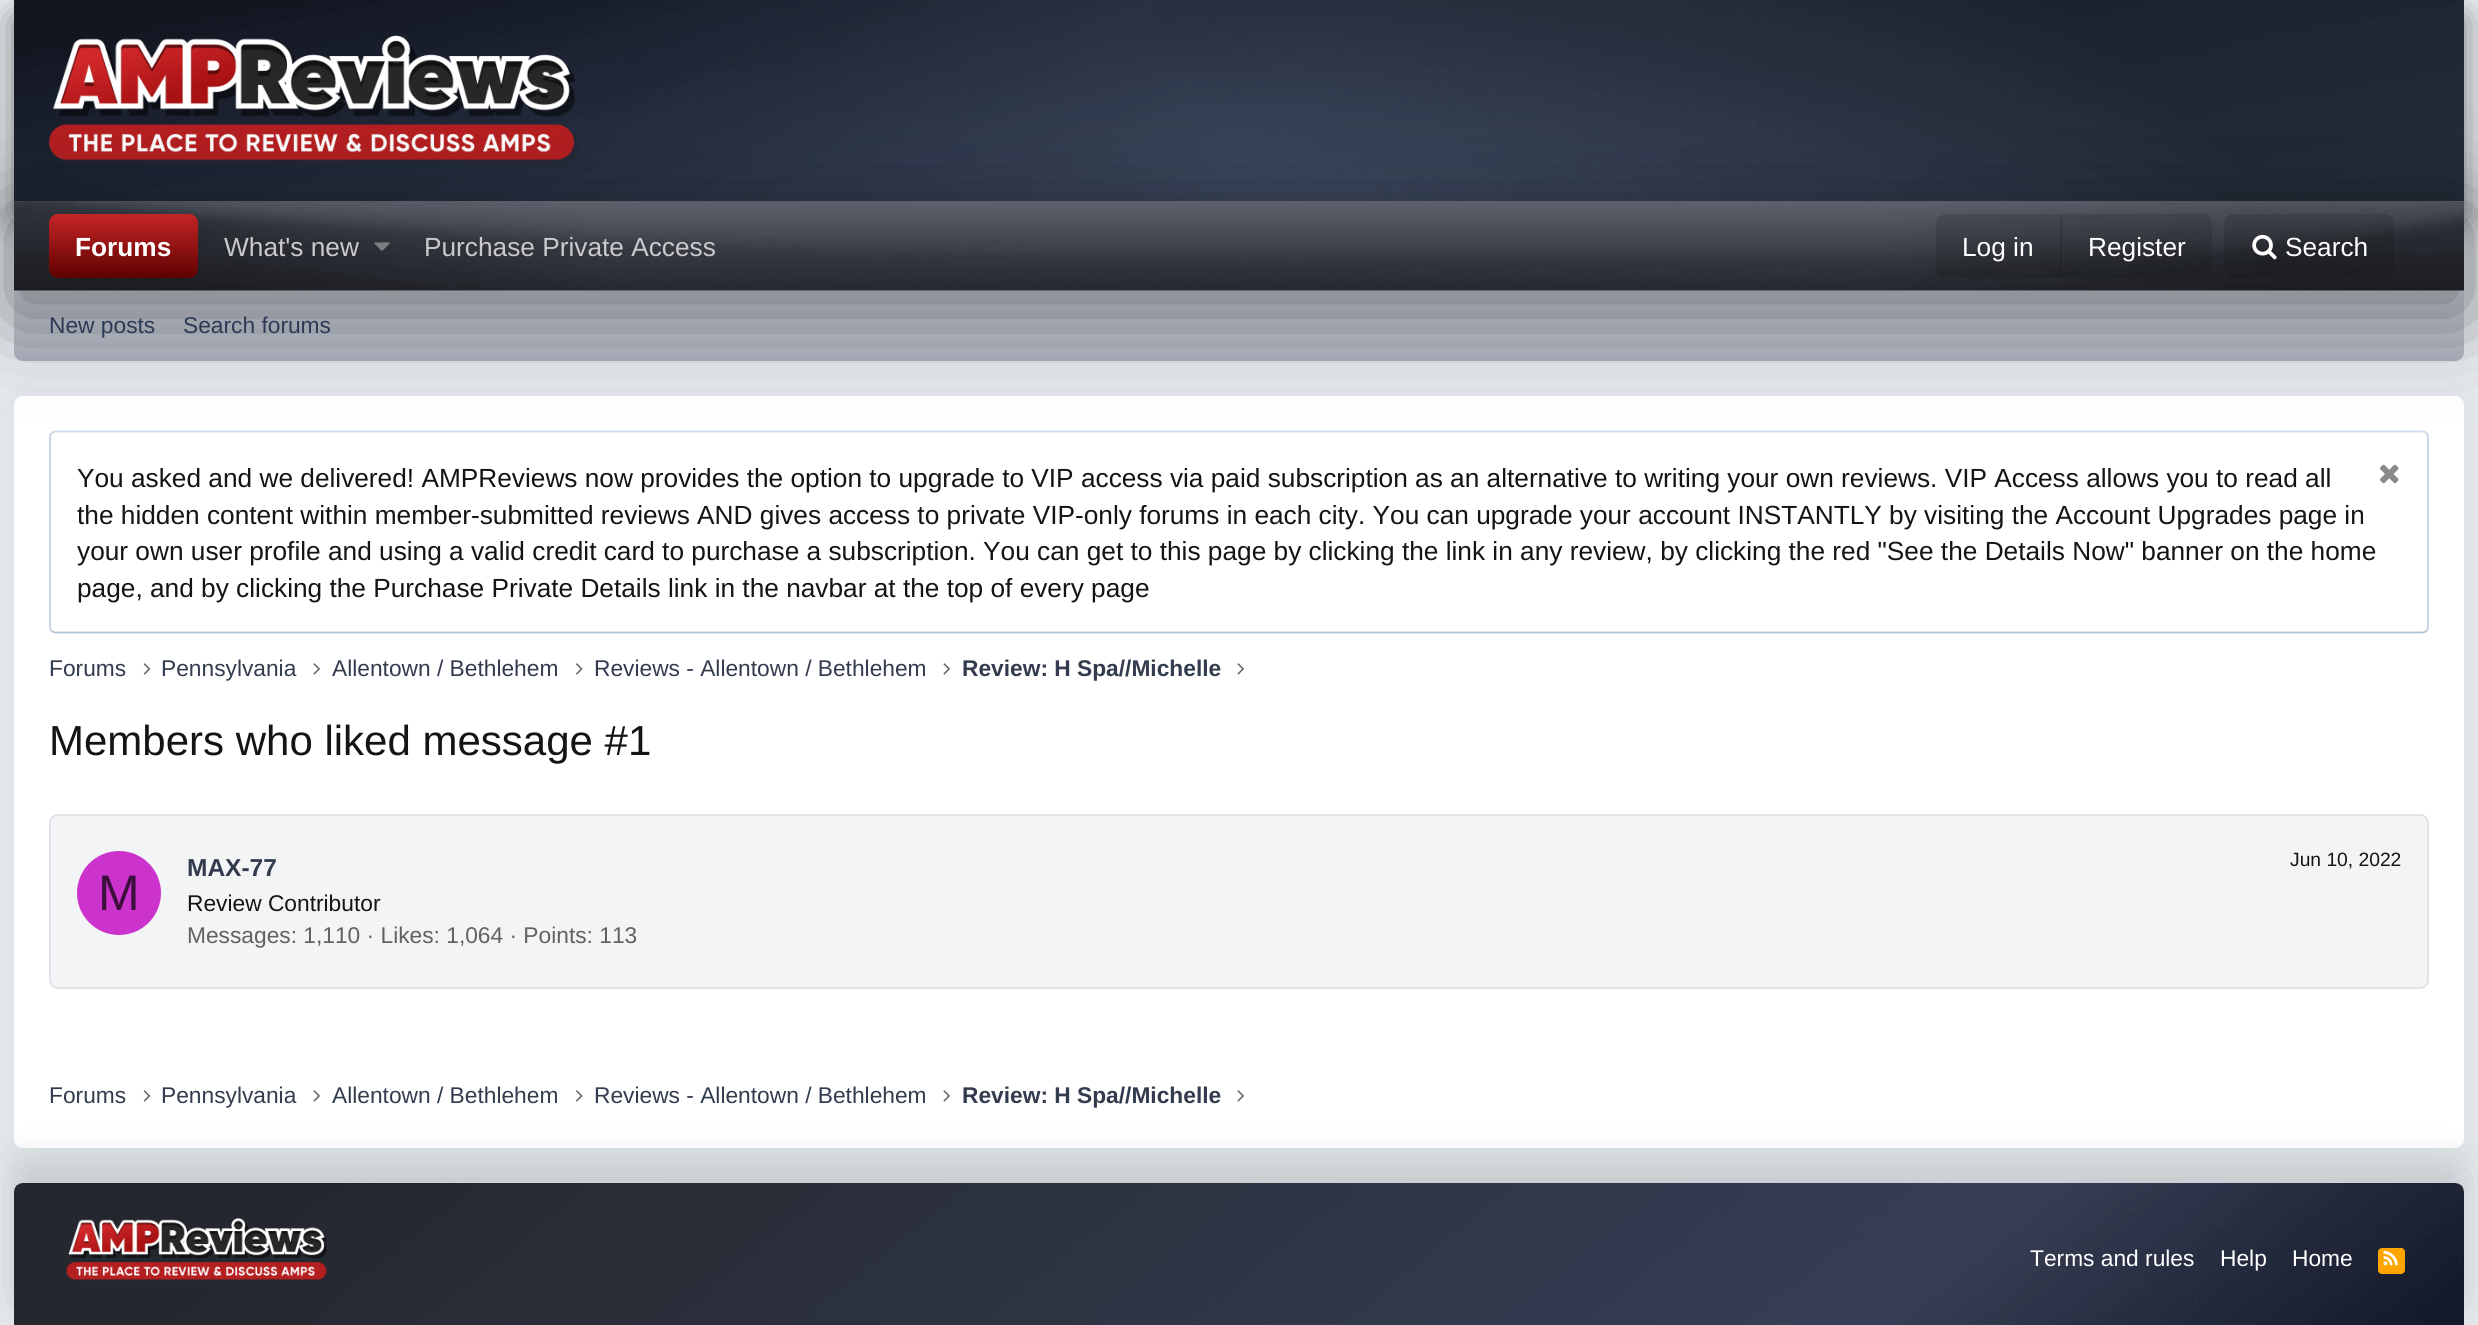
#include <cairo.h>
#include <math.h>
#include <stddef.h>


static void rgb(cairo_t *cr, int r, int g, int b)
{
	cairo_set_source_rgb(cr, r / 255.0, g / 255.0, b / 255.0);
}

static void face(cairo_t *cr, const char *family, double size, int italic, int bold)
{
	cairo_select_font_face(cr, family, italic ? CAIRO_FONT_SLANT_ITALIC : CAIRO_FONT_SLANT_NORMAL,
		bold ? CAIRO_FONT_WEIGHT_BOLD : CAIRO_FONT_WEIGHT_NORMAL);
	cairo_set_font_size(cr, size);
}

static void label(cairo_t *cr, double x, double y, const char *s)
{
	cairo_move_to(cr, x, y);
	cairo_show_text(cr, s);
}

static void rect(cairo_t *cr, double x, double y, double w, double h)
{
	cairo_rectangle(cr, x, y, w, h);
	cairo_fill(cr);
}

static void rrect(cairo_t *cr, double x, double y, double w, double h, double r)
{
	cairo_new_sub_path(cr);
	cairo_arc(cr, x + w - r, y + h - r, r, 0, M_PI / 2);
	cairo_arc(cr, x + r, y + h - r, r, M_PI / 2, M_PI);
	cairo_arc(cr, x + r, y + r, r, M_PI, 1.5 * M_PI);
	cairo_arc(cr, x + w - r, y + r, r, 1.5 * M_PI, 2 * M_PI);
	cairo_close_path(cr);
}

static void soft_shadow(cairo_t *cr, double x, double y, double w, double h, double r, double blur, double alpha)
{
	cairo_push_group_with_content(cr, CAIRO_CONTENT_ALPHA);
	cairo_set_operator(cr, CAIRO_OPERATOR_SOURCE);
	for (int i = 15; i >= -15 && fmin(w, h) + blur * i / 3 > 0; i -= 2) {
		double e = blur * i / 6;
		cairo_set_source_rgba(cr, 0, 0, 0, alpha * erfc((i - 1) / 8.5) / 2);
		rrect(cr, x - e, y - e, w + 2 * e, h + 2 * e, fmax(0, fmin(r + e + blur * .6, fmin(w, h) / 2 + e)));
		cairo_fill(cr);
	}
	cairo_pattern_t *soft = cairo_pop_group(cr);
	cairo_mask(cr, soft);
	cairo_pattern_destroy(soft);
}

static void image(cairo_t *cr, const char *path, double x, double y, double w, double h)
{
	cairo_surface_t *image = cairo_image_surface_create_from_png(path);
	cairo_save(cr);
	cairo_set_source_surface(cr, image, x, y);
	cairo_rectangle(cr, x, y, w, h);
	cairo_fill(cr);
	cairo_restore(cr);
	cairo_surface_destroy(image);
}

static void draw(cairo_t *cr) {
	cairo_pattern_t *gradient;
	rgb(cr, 231, 236, 240);
	cairo_paint(cr);
	rgb(cr, 0, 0, 0);
	soft_shadow(cr, 14, 18, 2450, 201, 0, 17.5, 0.5);
	image(cr, "image0.png", 14, 0, 2450, 202);
	image(cr, "image1.png", 49, 35, 530, 129);
	gradient = cairo_pattern_create_linear(1239, 290, 1239, 361);
	cairo_pattern_add_color_stop_rgba(gradient, 0, 0.843, 0.859, 0.902, 1);
	cairo_pattern_add_color_stop_rgba(gradient, 1, 0.686, 0.71, 0.757, 1);
	cairo_set_source(cr, gradient);
	cairo_pattern_destroy(gradient);
	cairo_new_path(cr);
	cairo_move_to(cr, 14, 291);
	cairo_line_to(cr, 2464, 291);
	cairo_line_to(cr, 2464, 352);
	cairo_curve_to(cr, 2464, 357, 2460, 361, 2455, 361);
	cairo_line_to(cr, 23, 361);
	cairo_curve_to(cr, 18, 361, 14, 357, 14, 352);
	cairo_close_path(cr);
	cairo_fill(cr);
	rgb(cr, 0, 0, 0);
	soft_shadow(cr, 14, 403, 2450, 752, 9, 30.5, 0.07);
	rgb(cr, 255, 255, 255);
	rrect(cr, 14, 396, 2450, 752, 9);
	cairo_fill(cr);
	cairo_new_path(cr);
	cairo_move_to(cr, 51.5, 433);
	cairo_curve_to(cr, 53, 432, 54.5, 431.5, 56, 431.5);
	cairo_line_to(cr, 2422, 431.5);
	cairo_curve_to(cr, 2423.5, 431.5, 2425, 432, 2426.5, 433);
	rgb(cr, 206, 217, 233);
	cairo_set_line_width(cr, 1.8);
	cairo_stroke(cr);
	cairo_new_path(cr);
	cairo_move_to(cr, 2426.5, 433);
	cairo_curve_to(cr, 2427.5, 434.5, 2428, 436, 2428, 437.5);
	cairo_line_to(cr, 2428, 626.5);
	cairo_curve_to(cr, 2428, 628, 2427.5, 629.5, 2426.5, 631);
	rgb(cr, 196, 209, 228);
	cairo_stroke(cr);
	cairo_new_path(cr);
	cairo_move_to(cr, 2426.5, 631);
	cairo_curve_to(cr, 2425, 632, 2423.5, 632.5, 2422, 632.5);
	cairo_line_to(cr, 56, 632.5);
	cairo_curve_to(cr, 54.5, 632.5, 53, 632, 51.5, 631);
	rgb(cr, 179, 195, 220);
	cairo_stroke(cr);
	cairo_new_path(cr);
	cairo_move_to(cr, 51.5, 631);
	cairo_curve_to(cr, 50.5, 629.5, 50, 628, 50, 626.5);
	cairo_line_to(cr, 50, 437.5);
	cairo_curve_to(cr, 50, 436, 50.5, 434.5, 51.5, 433);
	rgb(cr, 196, 209, 228);
	cairo_stroke(cr);
	rgb(cr, 0, 0, 0);
	soft_shadow(cr, 11, 215, 2457, 97, 0, 44, 0.5);
	image(cr, "image2.png", 14, 201, 2450, 90);
	gradient = cairo_pattern_create_linear(123, 214, 123, 278);
	cairo_pattern_add_color_stop_rgba(gradient, 0, 0.773, 0.145, 0.145, 1);
	cairo_pattern_add_color_stop_rgba(gradient, 1, 0.373, 0.004, 0.004, 1);
	cairo_set_source(cr, gradient);
	cairo_pattern_destroy(gradient);
	rrect(cr, 49, 214, 149, 64, 9);
	cairo_fill(cr);
	face(cr, "Liberation Sans", 26.25, 0, 1);
	rgb(cr, 255, 255, 255);
	label(cr, 75, 256, "Forums");
	face(cr, "Liberation Sans", 26.25, 0, 0);
	rgb(cr, 202, 202, 204);
	label(cr, 224, 256, "What's new");
	image(cr, "image3.png", 374, 242, 16, 9);
	label(cr, 424, 256, "Purchase Private Access");
	cairo_set_source_rgba(cr, 0.078, 0.078, 0.078, 0.15);
	rrect(cr, 1936, 214, 276, 64, 9);
	cairo_fill(cr);
	rgb(cr, 255, 255, 255);
	label(cr, 1962, 256, "Log in");
	cairo_set_source_rgba(cr, 0.078, 0.078, 0.078, 0.15);
	rect(cr, 2060, 214, 2, 64);
	rgb(cr, 255, 255, 255);
	label(cr, 2088, 256, "Register");
	cairo_set_source_rgba(cr, 0.078, 0.078, 0.078, 0.15);
	rrect(cr, 2224, 214, 170, 64, 9);
	cairo_fill(cr);
	image(cr, "image4.png", 2252, 234, 25, 26);
	rgb(cr, 255, 255, 255);
	label(cr, 2285, 256, "Search");
	face(cr, "Liberation Sans", 22.75, 0, 0);
	rgb(cr, 44, 58, 85);
	label(cr, 49, 333, "New posts");
	label(cr, 183, 333, "Search forums");
	face(cr, "Liberation Sans", 26.25, 0, 0);
	rgb(cr, 20, 20, 20);
	label(cr, 77, 487, "You asked and we delivered! AMPReviews now provides the option to upgrade to VIP access via paid subscription as an alternative to writing your own reviews. VIP Access allows you to read all");
	image(cr, "image5.png", 2380, 464, 19, 20);
	label(cr, 77, 524, "the hidden content within member-submitted reviews AND gives access to private VIP-only forums in each city. You can upgrade your account INSTANTLY by visiting the Account Upgrades page in");
	label(cr, 77, 560, "your own user profile and using a valid credit card to purchase a subscription. You can get to this page by clicking the link in any review, by clicking the red \"See the Details Now\" banner on the home");
	label(cr, 77, 597, "page, and by clicking the Purchase Private Details link in the navbar at the top of every page");
	face(cr, "Liberation Sans", 22.75, 0, 0);
	rgb(cr, 50, 60, 78);
	label(cr, 49, 676, "Forums");
	image(cr, "image6.png", 143, 663, 8, 12);
	label(cr, 161, 676, "Pennsylvania");
	image(cr, "image7.png", 313, 663, 7, 12);
	label(cr, 332, 676, "Allentown / Bethlehem");
	image(cr, "image8.png", 576, 663, 7, 12);
	label(cr, 594, 676, "Reviews - Allentown / Bethlehem");
	image(cr, "image7.png", 943, 663, 7, 12);
	face(cr, "Liberation Sans", 22.75, 0, 1);
	label(cr, 962, 676, "Review: H Spa//Michelle");
	image(cr, "image7.png", 1237, 663, 7, 12);
	face(cr, "Liberation Sans", 42, 0, 0);
	rgb(cr, 20, 20, 20);
	label(cr, 49, 755, "Members who liked message #1");
	rgb(cr, 243, 244, 245);
	rrect(cr, 50, 815, 2378, 173, 8);
	cairo_fill_preserve(cr);
	rgb(cr, 225, 226, 231);
	cairo_set_line_width(cr, 2);
	cairo_stroke(cr);
	rgb(cr, 204, 51, 204);
	cairo_arc(cr, 119, 893, 42, 0, 2 * M_PI);
	cairo_fill(cr);
	face(cr, "Liberation Sans", 50, 0, 0);
	rgb(cr, 61, 15, 61);
	label(cr, 98, 910, "M");
	face(cr, "Liberation Sans", 24.5, 0, 1);
	rgb(cr, 50, 60, 78);
	label(cr, 187, 876, "MAX-77");
	face(cr, "Liberation Sans", 19.25, 0, 0);
	rgb(cr, 20, 20, 20);
	label(cr, 2290, 866, "Jun 10, 2022");
	face(cr, "Liberation Sans", 22.75, 0, 0);
	label(cr, 187, 911, "Review Contributor");
	rgb(cr, 97, 98, 98);
	label(cr, 187, 943, "Messages: 1,110 · Likes: 1,064 · Points: 113");
	image(cr, "image6.png", 143, 1090, 8, 12);
	image(cr, "image7.png", 313, 1090, 7, 12);
	image(cr, "image8.png", 576, 1090, 7, 12);
	image(cr, "image7.png", 943, 1090, 7, 12);
	image(cr, "image7.png", 1237, 1090, 7, 12);
	rgb(cr, 0, 0, 0);
	soft_shadow(cr, 14, 1166, 2450, 143, 9, 22, 0.15);
	rgb(cr, 50, 60, 78);
	label(cr, 49, 1103, "Forums");
	label(cr, 161, 1103, "Pennsylvania");
	label(cr, 332, 1103, "Allentown / Bethlehem");
	label(cr, 594, 1103, "Reviews - Allentown / Bethlehem");
	face(cr, "Liberation Sans", 22.75, 0, 1);
	label(cr, 962, 1103, "Review: H Spa//Michelle");
	image(cr, "image9.png", 14, 1183, 2450, 142);
	image(cr, "image10.png", 66, 1218, 261, 63);
	face(cr, "Liberation Sans", 22.75, 0, 0);
	rgb(cr, 255, 255, 255);
	label(cr, 2030, 1266, "Terms and rules");
	label(cr, 2220, 1266, "Help");
	label(cr, 2292, 1266, "Home");
	rgb(cr, 255, 165, 0);
	rrect(cr, 2378, 1248, 27, 26, 4);
	cairo_fill(cr);
	image(cr, "image11.png", 2383, 1251, 15, 15);
}

int main(void) {
	cairo_surface_t *surface = cairo_image_surface_create(CAIRO_FORMAT_RGB24, 2478, 1325);
	cairo_t *cr = cairo_create(surface);
	cairo_font_options_t *options = cairo_font_options_create();
	cairo_font_options_set_hint_metrics(options, CAIRO_HINT_METRICS_OFF);
	cairo_font_options_set_hint_style(options, CAIRO_HINT_STYLE_NONE);
	cairo_set_font_options(cr, options);
	cairo_set_miter_limit(cr, 4);
	draw(cr);
	cairo_surface_write_to_png(surface, "render.png");
	cairo_font_options_destroy(options);
	cairo_destroy(cr);
	cairo_surface_destroy(surface);
	return 0;
}
